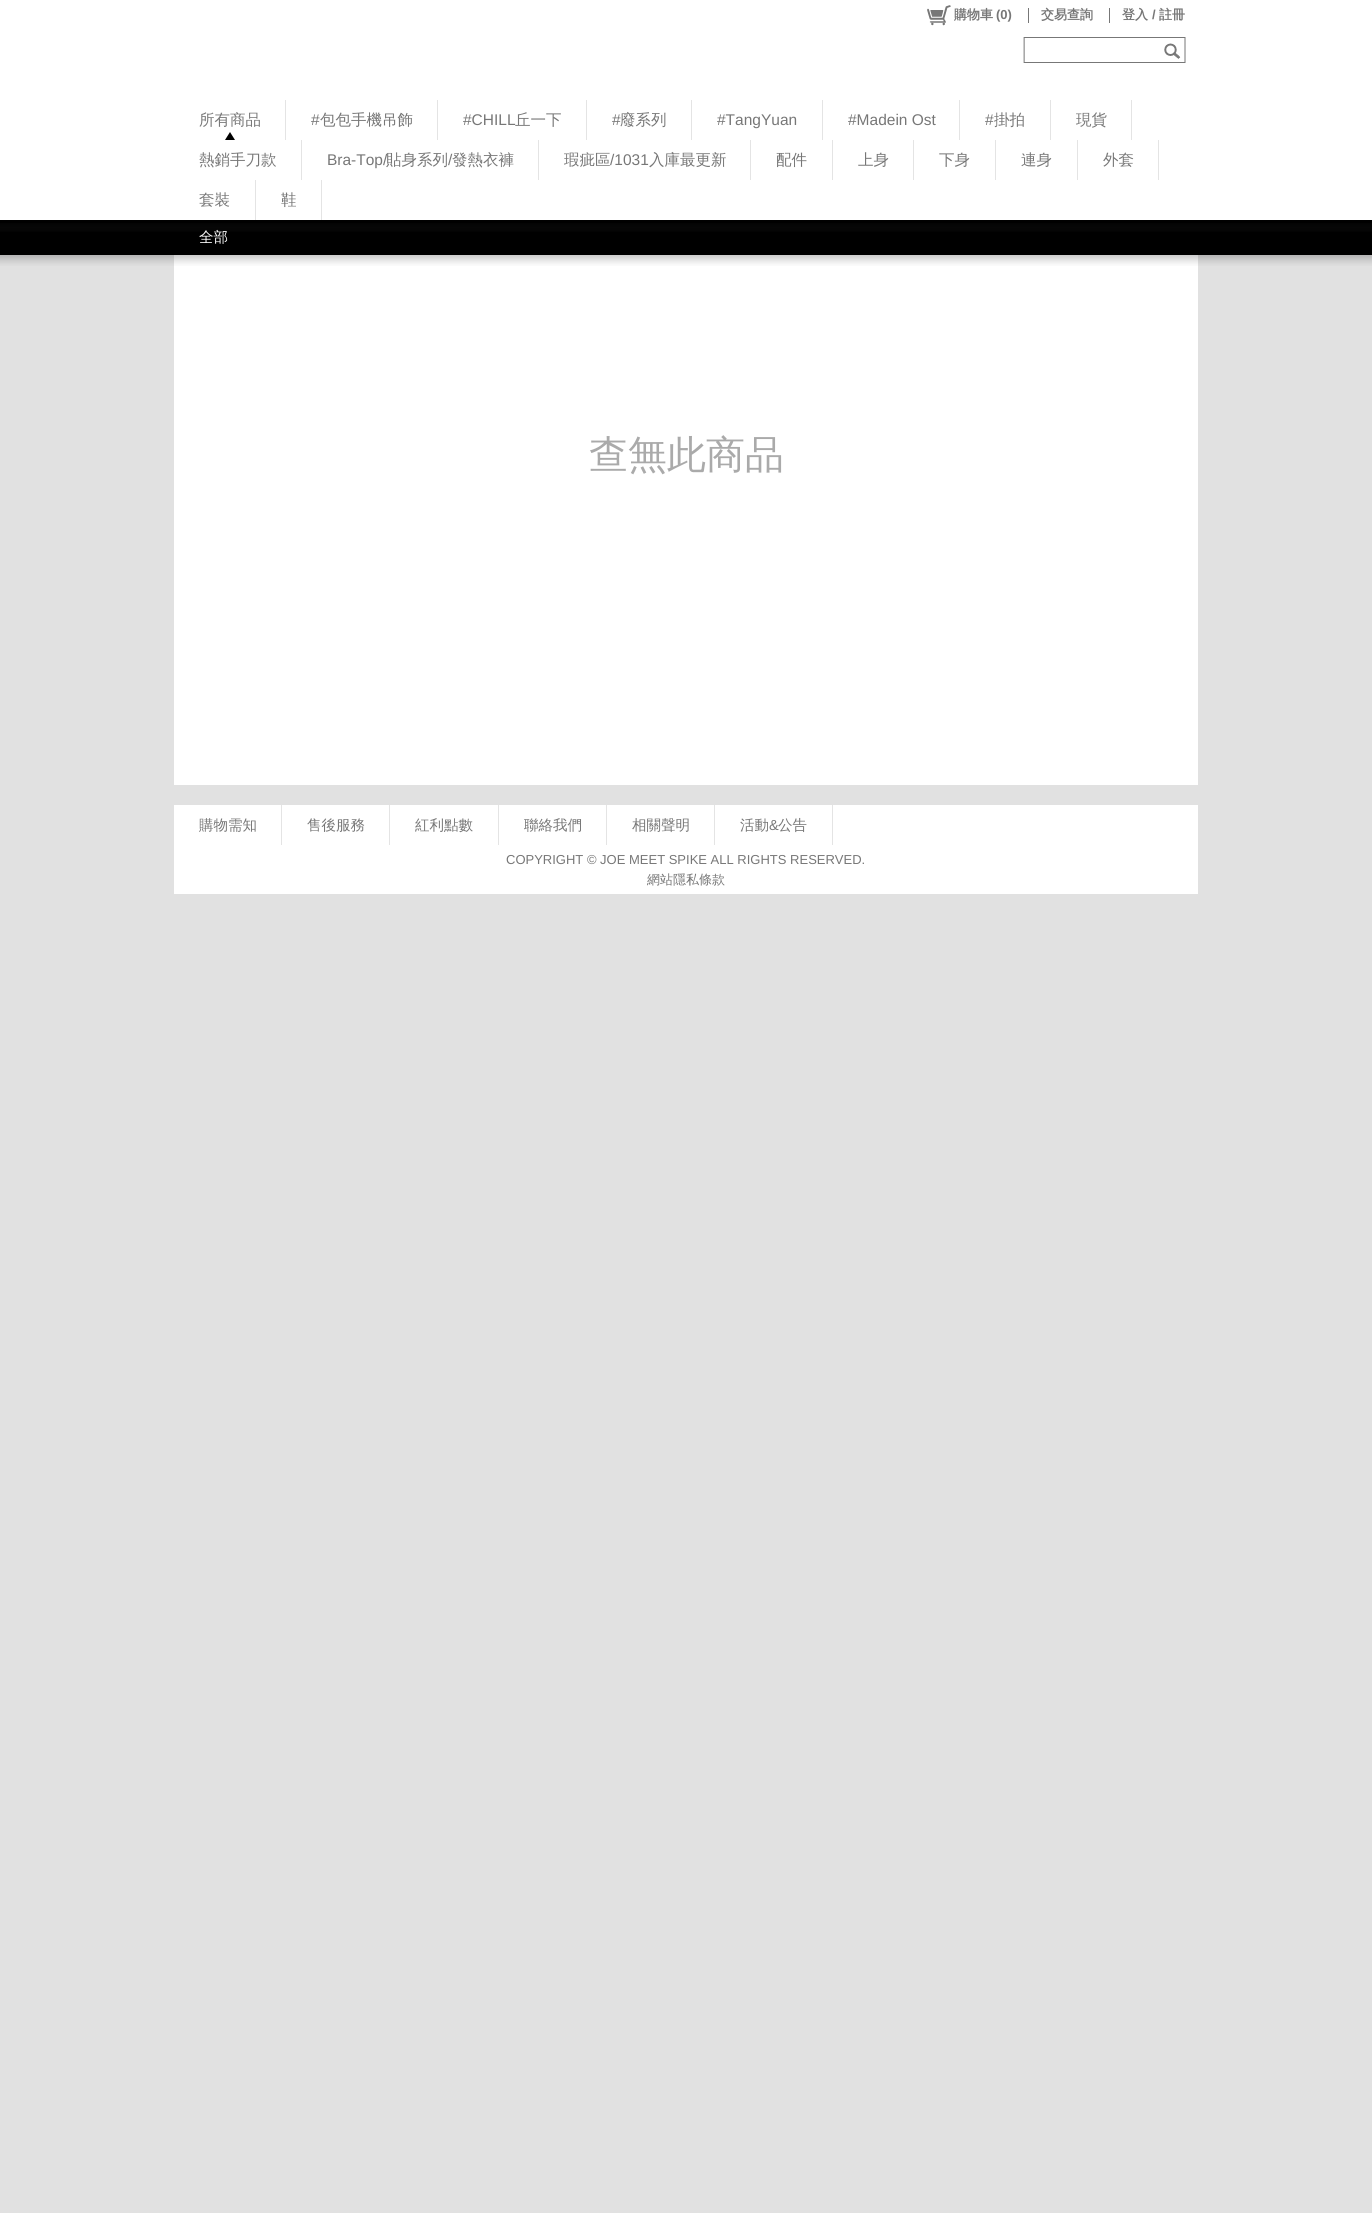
#include <cairo.h>
#include <math.h>
#include <stddef.h>


static void rgb(cairo_t *cr, int r, int g, int b)
{
	cairo_set_source_rgb(cr, r / 255.0, g / 255.0, b / 255.0);
}

static void face(cairo_t *cr, const char *family, double size, int italic, int bold)
{
	cairo_select_font_face(cr, family, italic ? CAIRO_FONT_SLANT_ITALIC : CAIRO_FONT_SLANT_NORMAL,
		bold ? CAIRO_FONT_WEIGHT_BOLD : CAIRO_FONT_WEIGHT_NORMAL);
	cairo_set_font_size(cr, size);
}

static void label(cairo_t *cr, double x, double y, const char *s)
{
	cairo_move_to(cr, x, y);
	cairo_show_text(cr, s);
}

static void rect(cairo_t *cr, double x, double y, double w, double h)
{
	cairo_rectangle(cr, x, y, w, h);
	cairo_fill(cr);
}

static void image(cairo_t *cr, const char *path, double x, double y, double w, double h)
{
	cairo_surface_t *image = cairo_image_surface_create_from_png(path);
	cairo_save(cr);
	cairo_set_source_surface(cr, image, x, y);
	cairo_rectangle(cr, x, y, w, h);
	cairo_fill(cr);
	cairo_restore(cr);
	cairo_surface_destroy(image);
}

static void draw(cairo_t *cr) {
	rgb(cr, 225, 225, 225);
	cairo_paint(cr);
	rgb(cr, 255, 255, 255);
	rect(cr, 0, 0, 1372, 220);
	image(cr, "image0.png", 927, 5, 24, 21);
	face(cr, "WenQuanYi Zen Hei", 13, 0, 1);
	rgb(cr, 119, 119, 119);
	label(cr, 954, 19, "購物車");
	face(cr, "Liberation Sans", 13, 0, 1);
	label(cr, 996, 19, "(0)");
	rect(cr, 1028, 8, 1, 15);
	face(cr, "WenQuanYi Zen Hei", 13, 0, 1);
	label(cr, 1041, 19, "交易查詢");
	rect(cr, 1109, 8, 1, 15);
	label(cr, 1122, 19, "登入");
	face(cr, "Liberation Sans", 13, 0, 1);
	label(cr, 1152, 19, "/");
	face(cr, "WenQuanYi Zen Hei", 13, 0, 1);
	label(cr, 1159, 19, "註冊");
	image(cr, "image1.png", 1023, 37, 138, 26);
	image(cr, "image2.png", 1161, 37, 25, 26);
	rgb(cr, 228, 228, 228);
	rect(cr, 285, 100, 1, 40);
	face(cr, "WenQuanYi Zen Hei Medium", 15.5, 0, 0);
	rgb(cr, 119, 119, 119);
	label(cr, 199, 125, "所有商品");
	rgb(cr, 0, 0, 0);
	cairo_new_path(cr);
	cairo_move_to(cr, 235, 140);
	cairo_line_to(cr, 225, 140);
	cairo_line_to(cr, 230, 132);
	cairo_close_path(cr);
	cairo_fill(cr);
	rgb(cr, 228, 228, 228);
	rect(cr, 437, 100, 1, 40);
	face(cr, "Liberation Sans", 15.5, 0, 0);
	rgb(cr, 119, 119, 119);
	label(cr, 311, 125, "#");
	face(cr, "WenQuanYi Zen Hei Medium", 15.5, 0, 0);
	label(cr, 320, 125, "包包手機吊飾");
	rgb(cr, 228, 228, 228);
	rect(cr, 586, 100, 1, 40);
	face(cr, "Liberation Sans", 15.5, 0, 0);
	rgb(cr, 119, 119, 119);
	label(cr, 463, 125, "#CHILL");
	face(cr, "WenQuanYi Zen Hei Medium", 15.5, 0, 0);
	label(cr, 515, 125, "丘一下");
	rgb(cr, 228, 228, 228);
	rect(cr, 691, 100, 1, 40);
	face(cr, "Liberation Sans", 15.5, 0, 0);
	rgb(cr, 119, 119, 119);
	label(cr, 612, 125, "#");
	face(cr, "WenQuanYi Zen Hei Medium", 15.5, 0, 0);
	label(cr, 620, 125, "廢系列");
	rgb(cr, 228, 228, 228);
	rect(cr, 822, 100, 1, 40);
	face(cr, "Liberation Sans", 15.5, 0, 0);
	rgb(cr, 119, 119, 119);
	label(cr, 717, 125, "#TangYuan");
	rgb(cr, 228, 228, 228);
	rect(cr, 959, 100, 1, 40);
	rgb(cr, 119, 119, 119);
	label(cr, 848, 125, "#Madein Ost");
	rgb(cr, 228, 228, 228);
	rect(cr, 1050, 100, 1, 40);
	rgb(cr, 119, 119, 119);
	label(cr, 985, 125, "#");
	face(cr, "WenQuanYi Zen Hei Medium", 15.5, 0, 0);
	label(cr, 994, 125, "掛拍");
	rgb(cr, 228, 228, 228);
	rect(cr, 1131, 100, 1, 40);
	rgb(cr, 119, 119, 119);
	label(cr, 1076, 125, "現貨");
	rgb(cr, 228, 228, 228);
	rect(cr, 301, 140, 1, 40);
	rgb(cr, 119, 119, 119);
	label(cr, 199, 165, "熱銷手刀款");
	rgb(cr, 228, 228, 228);
	rect(cr, 538, 140, 1, 40);
	face(cr, "Liberation Sans", 15.5, 0, 0);
	rgb(cr, 119, 119, 119);
	label(cr, 327, 165, "Bra-Top/");
	face(cr, "WenQuanYi Zen Hei Medium", 15.5, 0, 0);
	label(cr, 386, 165, "貼身系列");
	face(cr, "Liberation Sans", 15.5, 0, 0);
	label(cr, 448, 165, "/");
	face(cr, "WenQuanYi Zen Hei Medium", 15.5, 0, 0);
	label(cr, 452, 165, "發熱衣褲");
	rgb(cr, 228, 228, 228);
	rect(cr, 750, 140, 1, 40);
	rgb(cr, 119, 119, 119);
	label(cr, 564, 165, "瑕疵區");
	face(cr, "Liberation Sans", 15.5, 0, 0);
	label(cr, 610, 165, "/1031");
	face(cr, "WenQuanYi Zen Hei Medium", 15.5, 0, 0);
	label(cr, 649, 165, "入庫最更新");
	rgb(cr, 228, 228, 228);
	rect(cr, 832, 140, 1, 40);
	rgb(cr, 119, 119, 119);
	label(cr, 776, 165, "配件");
	rgb(cr, 228, 228, 228);
	rect(cr, 913, 140, 1, 40);
	rgb(cr, 119, 119, 119);
	label(cr, 858, 165, "上身");
	rgb(cr, 228, 228, 228);
	rect(cr, 995, 140, 1, 40);
	rgb(cr, 119, 119, 119);
	label(cr, 939, 165, "下身");
	rgb(cr, 228, 228, 228);
	rect(cr, 1077, 140, 1, 40);
	rgb(cr, 119, 119, 119);
	label(cr, 1021, 165, "連身");
	rgb(cr, 228, 228, 228);
	rect(cr, 1158, 140, 1, 40);
	rgb(cr, 119, 119, 119);
	label(cr, 1103, 165, "外套");
	rgb(cr, 228, 228, 228);
	rect(cr, 255, 180, 1, 40);
	rgb(cr, 119, 119, 119);
	label(cr, 199, 205, "套裝");
	rgb(cr, 228, 228, 228);
	rect(cr, 321, 180, 1, 40);
	rgb(cr, 119, 119, 119);
	label(cr, 281, 205, "鞋");
	rgb(cr, 0, 0, 0);
	rect(cr, 0, 220, 1372, 35);
	face(cr, "WenQuanYi Zen Hei Medium", 14.5, 0, 0);
	rgb(cr, 255, 255, 255);
	label(cr, 199, 242, "全部");
	image(cr, "image3.png", 0, 223, 1372, 9);
	rect(cr, 174, 255, 1024, 530);
	image(cr, "image4.png", 0, 255, 1372, 11);
	face(cr, "WenQuanYi Zen Hei Medium", 39, 0, 0);
	rgb(cr, 170, 170, 170);
	label(cr, 589, 468, "查無此商品");
	rgb(cr, 255, 255, 255);
	rect(cr, 174, 805, 1024, 89);
	rgb(cr, 228, 228, 228);
	rect(cr, 281, 805, 1, 40);
	face(cr, "WenQuanYi Zen Hei Medium", 14.5, 0, 0);
	rgb(cr, 119, 119, 119);
	label(cr, 199, 830, "購物需知");
	rgb(cr, 228, 228, 228);
	rect(cr, 389, 805, 1, 40);
	rgb(cr, 119, 119, 119);
	label(cr, 307, 830, "售後服務");
	rgb(cr, 228, 228, 228);
	rect(cr, 498, 805, 1, 40);
	rgb(cr, 119, 119, 119);
	label(cr, 415, 830, "紅利點數");
	rgb(cr, 228, 228, 228);
	rect(cr, 606, 805, 1, 40);
	rgb(cr, 119, 119, 119);
	label(cr, 524, 830, "聯絡我們");
	rgb(cr, 228, 228, 228);
	rect(cr, 714, 805, 1, 40);
	rgb(cr, 119, 119, 119);
	label(cr, 632, 830, "相關聲明");
	rgb(cr, 228, 228, 228);
	rect(cr, 832, 805, 1, 40);
	rgb(cr, 119, 119, 119);
	label(cr, 740, 830, "活動");
	face(cr, "Liberation Sans", 14.5, 0, 0);
	label(cr, 769, 830, "&");
	face(cr, "WenQuanYi Zen Hei Medium", 14.5, 0, 0);
	label(cr, 778, 830, "公告");
	face(cr, "Liberation Sans", 13, 0, 0);
	label(cr, 506, 864, "COPYRIGHT © JOE MEET SPIKE ALL RIGHTS RESERVED.");
	face(cr, "WenQuanYi Zen Hei Medium", 13, 0, 0);
	label(cr, 647, 884, "網站隱私條款");
}

int main(void) {
	cairo_surface_t *surface = cairo_image_surface_create(CAIRO_FORMAT_RGB24, 1372, 2213);
	cairo_t *cr = cairo_create(surface);
	cairo_font_options_t *options = cairo_font_options_create();
	cairo_font_options_set_hint_metrics(options, CAIRO_HINT_METRICS_OFF);
	cairo_font_options_set_hint_style(options, CAIRO_HINT_STYLE_NONE);
	cairo_set_font_options(cr, options);
	cairo_set_miter_limit(cr, 4);
	draw(cr);
	cairo_surface_write_to_png(surface, "render.png");
	cairo_font_options_destroy(options);
	cairo_destroy(cr);
	cairo_surface_destroy(surface);
	return 0;
}
